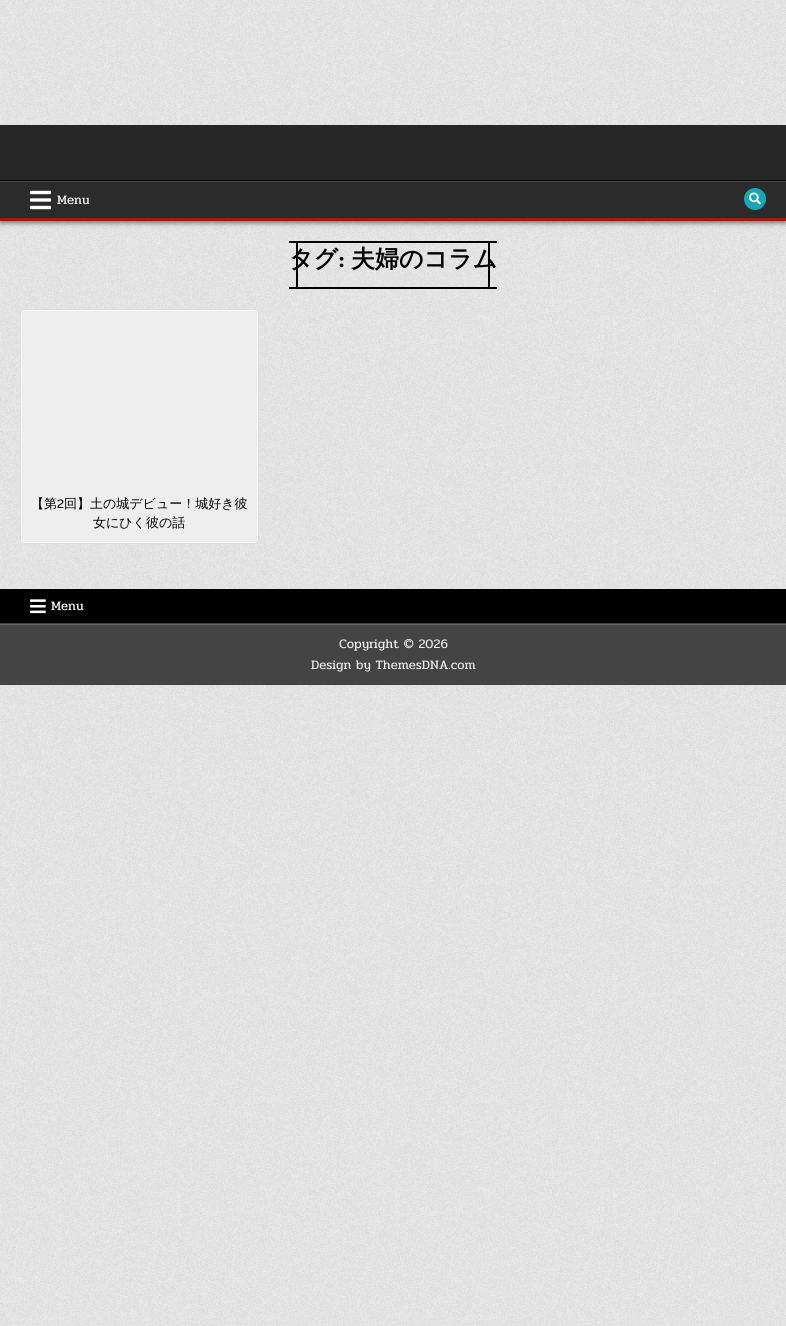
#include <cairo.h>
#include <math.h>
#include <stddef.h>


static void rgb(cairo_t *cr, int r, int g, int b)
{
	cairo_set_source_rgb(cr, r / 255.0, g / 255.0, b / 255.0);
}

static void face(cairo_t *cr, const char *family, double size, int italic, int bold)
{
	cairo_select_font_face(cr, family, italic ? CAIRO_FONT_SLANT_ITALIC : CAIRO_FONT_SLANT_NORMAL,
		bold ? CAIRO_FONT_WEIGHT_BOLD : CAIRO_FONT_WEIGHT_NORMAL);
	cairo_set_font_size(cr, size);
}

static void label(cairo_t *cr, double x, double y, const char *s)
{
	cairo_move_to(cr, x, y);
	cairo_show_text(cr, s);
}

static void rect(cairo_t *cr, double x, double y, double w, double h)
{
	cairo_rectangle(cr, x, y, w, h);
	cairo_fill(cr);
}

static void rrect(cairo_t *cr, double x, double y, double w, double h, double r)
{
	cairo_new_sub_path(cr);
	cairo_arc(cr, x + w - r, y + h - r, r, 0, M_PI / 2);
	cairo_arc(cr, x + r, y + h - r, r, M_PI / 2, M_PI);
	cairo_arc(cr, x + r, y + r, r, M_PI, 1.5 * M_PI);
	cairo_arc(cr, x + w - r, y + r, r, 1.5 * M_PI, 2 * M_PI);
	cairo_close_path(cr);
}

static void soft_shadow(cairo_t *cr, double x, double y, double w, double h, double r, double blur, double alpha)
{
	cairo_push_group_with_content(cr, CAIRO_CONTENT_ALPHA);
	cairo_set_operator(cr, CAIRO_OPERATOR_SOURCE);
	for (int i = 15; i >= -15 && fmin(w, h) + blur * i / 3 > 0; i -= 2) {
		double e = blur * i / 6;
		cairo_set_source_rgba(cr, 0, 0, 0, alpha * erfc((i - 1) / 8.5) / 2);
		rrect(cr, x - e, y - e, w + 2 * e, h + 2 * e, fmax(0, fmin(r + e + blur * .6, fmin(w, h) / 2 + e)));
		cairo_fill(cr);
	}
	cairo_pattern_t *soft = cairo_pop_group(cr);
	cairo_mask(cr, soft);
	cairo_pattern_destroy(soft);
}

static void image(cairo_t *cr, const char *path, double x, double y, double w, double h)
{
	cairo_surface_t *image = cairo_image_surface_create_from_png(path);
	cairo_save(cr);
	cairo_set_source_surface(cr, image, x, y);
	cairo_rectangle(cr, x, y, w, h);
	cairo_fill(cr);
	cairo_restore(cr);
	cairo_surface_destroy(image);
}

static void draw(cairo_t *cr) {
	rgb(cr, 255, 255, 255);
	cairo_paint(cr);
	image(cr, "image0.png", 0, 0, 786, 1326);
	rgb(cr, 0, 0, 0);
	soft_shadow(cr, 0, 183, 786, 40, 0, 2.5, 0.5);
	rgb(cr, 38, 38, 38);
	rect(cr, 0, 125, 786, 55);
	rgb(cr, 0, 0, 0);
	rect(cr, 0, 180, 786, 1);
	rgb(cr, 43, 43, 43);
	rect(cr, 0, 182, 786, 36);
	rgb(cr, 76, 73, 73);
	rect(cr, 0, 181, 786, 1);
	rgb(cr, 149, 31, 23);
	rect(cr, 0, 218, 786, 3);
	image(cr, "image1.png", 30, 190, 21, 20);
	face(cr, "Pridi", 13, 0, 0);
	rgb(cr, 255, 255, 255);
	label(cr, 57, 204, "Menu");
	rgb(cr, 24, 165, 183);
	cairo_new_path(cr);
	cairo_arc(cr, 755, 199, 11, 0, 2 * M_PI);
	cairo_fill(cr);
	image(cr, "image2.png", 749, 192, 12, 13);
	rgb(cr, 0, 0, 0);
	rect(cr, 289, 241, 208, 2);
	rect(cr, 289, 287, 208, 2);
	rect(cr, 296, 241, 2, 48);
	rect(cr, 488, 241, 2, 48);
	face(cr, "WenQuanYi Zen Hei", 24, 0, 1);
	label(cr, 289, 267, "タグ");
	face(cr, "Frank Ruhl Libre", 24, 0, 1);
	label(cr, 338, 267, ":");
	face(cr, "WenQuanYi Zen Hei", 24, 0, 1);
	label(cr, 351, 267, "夫婦のコラム");
	rgb(cr, 238, 238, 238);
	rrect(cr, 20.5, 309.5, 238, 234, 4.5);
	cairo_fill_preserve(cr);
	rgb(cr, 221, 221, 221);
	cairo_set_line_width(cr, 1);
	cairo_stroke(cr);
	rgb(cr, 255, 255, 255);
	cairo_set_fill_rule(cr, CAIRO_FILL_RULE_EVEN_ODD);
	cairo_new_path(cr);
	cairo_move_to(cr, 21, 314);
	cairo_line_to(cr, 21, 539);
	cairo_line_to(cr, 22, 542);
	cairo_line_to(cr, 22, 311);
	cairo_close_path(cr);
	cairo_move_to(cr, 25, 310);
	cairo_line_to(cr, 22, 311);
	cairo_line_to(cr, 257, 311);
	cairo_line_to(cr, 254, 310);
	cairo_close_path(cr);
	cairo_move_to(cr, 258, 314);
	cairo_line_to(cr, 257, 311);
	cairo_line_to(cr, 257, 542);
	cairo_line_to(cr, 258, 539);
	cairo_close_path(cr);
	cairo_move_to(cr, 254, 543);
	cairo_line_to(cr, 257, 542);
	cairo_line_to(cr, 22, 542);
	cairo_line_to(cr, 25, 543);
	cairo_close_path(cr);
	cairo_fill(cr);
	face(cr, "WenQuanYi Zen Hei Medium", 13, 0, 0);
	rgb(cr, 0, 0, 0);
	label(cr, 31, 508, "【第");
	face(cr, "Pridi", 13, 0, 0);
	label(cr, 57, 508, "2");
	face(cr, "WenQuanYi Zen Hei Medium", 13, 0, 0);
	label(cr, 64, 508, "回】土の城デビュー！城好き彼");
	label(cr, 93, 527, "女にひく彼の話");
	rect(cr, 0, 589, 786, 34);
	rgb(cr, 68, 68, 68);
	rect(cr, 0, 623, 786, 1);
	image(cr, "image3.png", 30, 599, 16, 15);
	face(cr, "Pridi", 13, 0, 0);
	rgb(cr, 255, 255, 255);
	label(cr, 51, 610, "Menu");
	rgb(cr, 68, 68, 68);
	rect(cr, 0, 625, 786, 60);
	rgb(cr, 101, 101, 101);
	rect(cr, 0, 624, 786, 1);
	rgb(cr, 238, 238, 238);
	label(cr, 339, 648, "Copyright © 2026");
	label(cr, 311, 669, "Design by ThemesDNA.com");
}

int main(void) {
	cairo_surface_t *surface = cairo_image_surface_create(CAIRO_FORMAT_RGB24, 786, 1326);
	cairo_t *cr = cairo_create(surface);
	cairo_font_options_t *options = cairo_font_options_create();
	cairo_font_options_set_hint_metrics(options, CAIRO_HINT_METRICS_OFF);
	cairo_font_options_set_hint_style(options, CAIRO_HINT_STYLE_NONE);
	cairo_set_font_options(cr, options);
	cairo_set_miter_limit(cr, 4);
	draw(cr);
	cairo_surface_write_to_png(surface, "render.png");
	cairo_font_options_destroy(options);
	cairo_destroy(cr);
	cairo_surface_destroy(surface);
	return 0;
}
